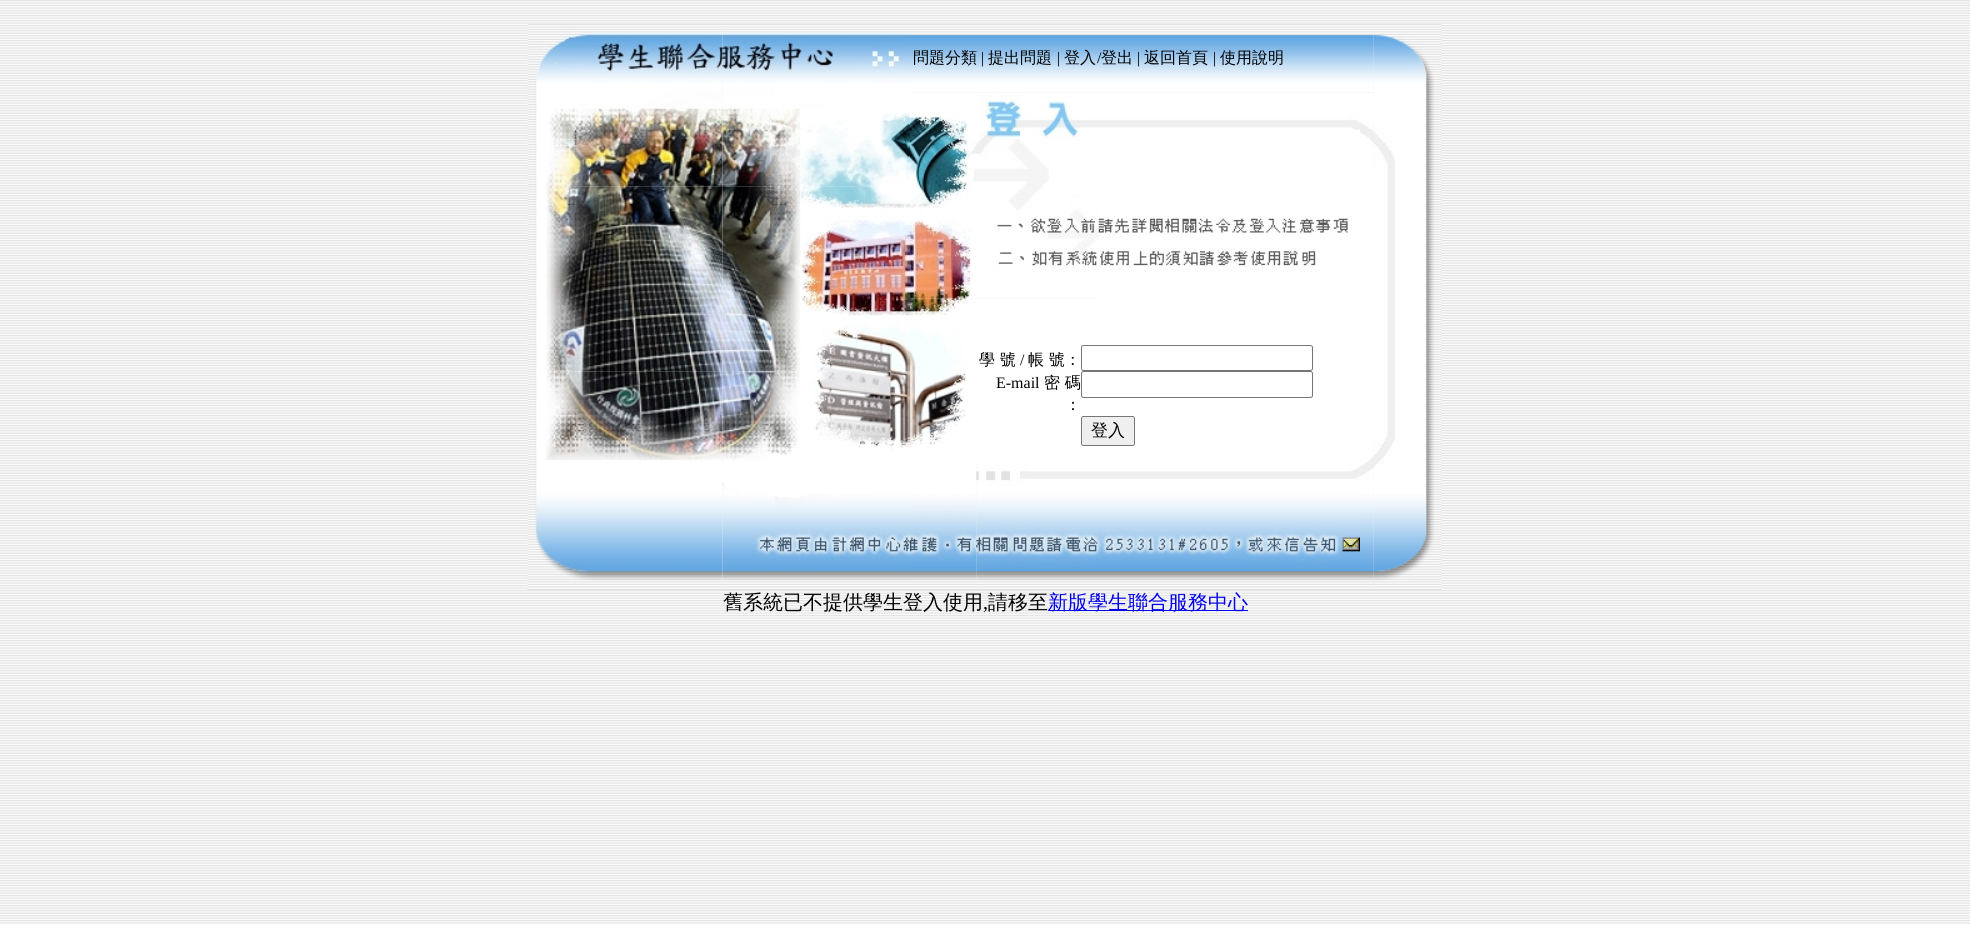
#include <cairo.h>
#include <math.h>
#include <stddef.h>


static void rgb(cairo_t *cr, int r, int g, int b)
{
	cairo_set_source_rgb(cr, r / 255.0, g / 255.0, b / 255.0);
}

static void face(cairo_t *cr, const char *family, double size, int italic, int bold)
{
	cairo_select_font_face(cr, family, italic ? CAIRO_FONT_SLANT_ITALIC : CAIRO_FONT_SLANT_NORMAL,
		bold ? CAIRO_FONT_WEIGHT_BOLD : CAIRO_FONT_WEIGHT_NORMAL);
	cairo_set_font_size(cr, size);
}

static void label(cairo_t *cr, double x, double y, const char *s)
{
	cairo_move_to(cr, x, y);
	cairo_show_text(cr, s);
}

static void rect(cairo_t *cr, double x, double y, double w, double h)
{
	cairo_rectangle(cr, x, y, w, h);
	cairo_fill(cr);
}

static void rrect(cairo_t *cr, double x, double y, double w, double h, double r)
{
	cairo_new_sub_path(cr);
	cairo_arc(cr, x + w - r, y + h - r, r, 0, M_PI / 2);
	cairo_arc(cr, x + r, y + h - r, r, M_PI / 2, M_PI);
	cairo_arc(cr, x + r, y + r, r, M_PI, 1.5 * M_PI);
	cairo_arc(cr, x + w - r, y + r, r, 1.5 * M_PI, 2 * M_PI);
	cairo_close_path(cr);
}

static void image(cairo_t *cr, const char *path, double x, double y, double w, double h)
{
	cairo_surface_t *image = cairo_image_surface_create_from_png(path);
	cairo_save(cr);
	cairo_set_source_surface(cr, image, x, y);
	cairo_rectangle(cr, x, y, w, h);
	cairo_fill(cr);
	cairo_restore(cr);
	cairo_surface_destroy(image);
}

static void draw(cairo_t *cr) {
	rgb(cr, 255, 255, 255);
	cairo_paint(cr);
	image(cr, "image0.png", 0, 0, 1970, 924);
	image(cr, "image1.png", 527, 24, 196, 163);
	image(cr, "image2.png", 722, 24, 188, 163);
	image(cr, "image3.png", 910, 24, 464, 69);
	face(cr, "WenQuanYi Zen Hei Medium", 16, 0, 0);
	rgb(cr, 0, 0, 0);
	label(cr, 913, 63, "問題分類");
	face(cr, "Liberation Serif", 16, 0, 0);
	label(cr, 981, 63, "|");
	face(cr, "WenQuanYi Zen Hei Medium", 16, 0, 0);
	label(cr, 988, 63, "提出問題");
	face(cr, "Liberation Serif", 16, 0, 0);
	label(cr, 1057, 63, "|");
	face(cr, "WenQuanYi Zen Hei Medium", 16, 0, 0);
	label(cr, 1064, 63, "登入");
	face(cr, "Liberation Serif", 16, 0, 0);
	label(cr, 1097, 63, "/");
	face(cr, "WenQuanYi Zen Hei Medium", 16, 0, 0);
	label(cr, 1101, 63, "登出");
	face(cr, "Liberation Serif", 16, 0, 0);
	label(cr, 1137, 63, "|");
	face(cr, "WenQuanYi Zen Hei Medium", 16, 0, 0);
	label(cr, 1144, 63, "返回首頁");
	face(cr, "Liberation Serif", 16, 0, 0);
	label(cr, 1213, 63, "|");
	face(cr, "WenQuanYi Zen Hei Medium", 16, 0, 0);
	label(cr, 1220, 63, "使用說明");
	image(cr, "image4.png", 1373, 24, 69, 566);
	image(cr, "image5.png", 910, 93, 464, 37);
	image(cr, "image6.png", 527, 186, 196, 186);
	image(cr, "image7.png", 722, 186, 188, 186);
	image(cr, "image8.png", 910, 130, 190, 169);
	rgb(cr, 255, 255, 255);
	rect(cr, 1100, 130, 260, 169);
	image(cr, "image9.png", 1100, 218, 248, 48);
	image(cr, "image10.png", 1360, 130, 14, 460);
	image(cr, "image11.png", 527, 371, 196, 219);
	image(cr, "image12.png", 722, 371, 188, 219);
	rect(cr, 976, 299, 384, 166);
	image(cr, "image13.png", 910, 298, 67, 292);
	rgb(cr, 0, 0, 0);
	label(cr, 979, 365, "學 號");
	face(cr, "Liberation Serif", 16, 0, 0);
	label(cr, 1020, 365, "/");
	face(cr, "WenQuanYi Zen Hei Medium", 16, 0, 0);
	label(cr, 1028, 365, "帳 號：");
	rrect(cr, 1081.5, 345.5, 231, 25, 2);
	rgb(cr, 118, 118, 118);
	cairo_set_line_width(cr, 1);
	cairo_stroke(cr);
	face(cr, "Liberation Serif", 16, 0, 0);
	rgb(cr, 0, 0, 0);
	label(cr, 996, 388, "E-mail");
	face(cr, "WenQuanYi Zen Hei Medium", 16, 0, 0);
	label(cr, 1044, 388, "密 碼");
	label(cr, 1065, 410, "：");
	rrect(cr, 1081.5, 371.5, 231, 26, 2);
	rgb(cr, 118, 118, 118);
	cairo_stroke(cr);
	rgb(cr, 239, 239, 239);
	rrect(cr, 1081.5, 416.5, 53, 29, 2);
	cairo_fill_preserve(cr);
	rgb(cr, 118, 118, 118);
	cairo_stroke(cr);
	face(cr, "WenQuanYi Zen Hei Medium", 17, 0, 0);
	rgb(cr, 0, 0, 0);
	label(cr, 1091, 436, "登入");
	image(cr, "image14.png", 976, 465, 384, 125);
	face(cr, "WenQuanYi Zen Hei Medium", 20, 0, 0);
	label(cr, 723, 609, "舊系統已不提供學生登入使用");
	face(cr, "Liberation Serif", 20, 0, 0);
	label(cr, 983, 609, ",");
	face(cr, "WenQuanYi Zen Hei Medium", 20, 0, 0);
	label(cr, 988, 609, "請移至");
	rgb(cr, 0, 0, 238);
	rect(cr, 1048, 610, 200, 1);
	label(cr, 1048, 609, "新版學生聯合服務中心");
}

int main(void) {
	cairo_surface_t *surface = cairo_image_surface_create(CAIRO_FORMAT_RGB24, 1970, 925);
	cairo_t *cr = cairo_create(surface);
	cairo_font_options_t *options = cairo_font_options_create();
	cairo_font_options_set_hint_metrics(options, CAIRO_HINT_METRICS_OFF);
	cairo_font_options_set_hint_style(options, CAIRO_HINT_STYLE_NONE);
	cairo_set_font_options(cr, options);
	cairo_set_miter_limit(cr, 4);
	draw(cr);
	cairo_surface_write_to_png(surface, "render.png");
	cairo_font_options_destroy(options);
	cairo_destroy(cr);
	cairo_surface_destroy(surface);
	return 0;
}
